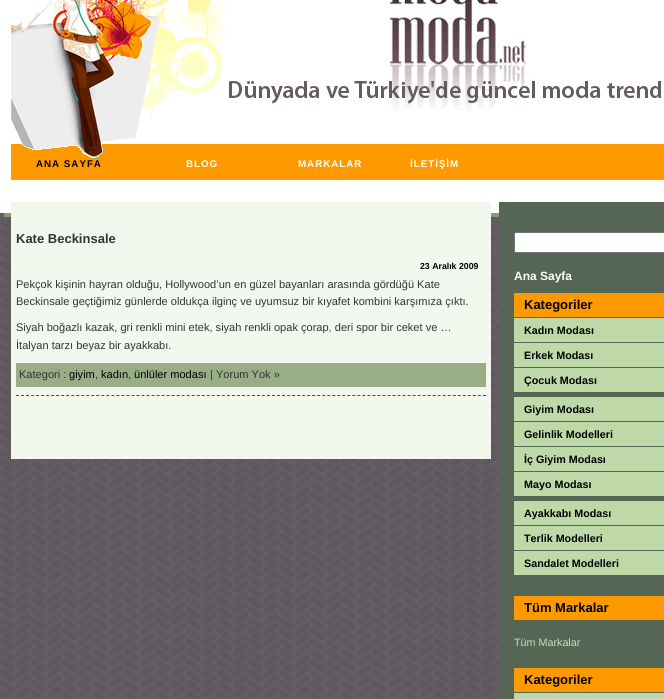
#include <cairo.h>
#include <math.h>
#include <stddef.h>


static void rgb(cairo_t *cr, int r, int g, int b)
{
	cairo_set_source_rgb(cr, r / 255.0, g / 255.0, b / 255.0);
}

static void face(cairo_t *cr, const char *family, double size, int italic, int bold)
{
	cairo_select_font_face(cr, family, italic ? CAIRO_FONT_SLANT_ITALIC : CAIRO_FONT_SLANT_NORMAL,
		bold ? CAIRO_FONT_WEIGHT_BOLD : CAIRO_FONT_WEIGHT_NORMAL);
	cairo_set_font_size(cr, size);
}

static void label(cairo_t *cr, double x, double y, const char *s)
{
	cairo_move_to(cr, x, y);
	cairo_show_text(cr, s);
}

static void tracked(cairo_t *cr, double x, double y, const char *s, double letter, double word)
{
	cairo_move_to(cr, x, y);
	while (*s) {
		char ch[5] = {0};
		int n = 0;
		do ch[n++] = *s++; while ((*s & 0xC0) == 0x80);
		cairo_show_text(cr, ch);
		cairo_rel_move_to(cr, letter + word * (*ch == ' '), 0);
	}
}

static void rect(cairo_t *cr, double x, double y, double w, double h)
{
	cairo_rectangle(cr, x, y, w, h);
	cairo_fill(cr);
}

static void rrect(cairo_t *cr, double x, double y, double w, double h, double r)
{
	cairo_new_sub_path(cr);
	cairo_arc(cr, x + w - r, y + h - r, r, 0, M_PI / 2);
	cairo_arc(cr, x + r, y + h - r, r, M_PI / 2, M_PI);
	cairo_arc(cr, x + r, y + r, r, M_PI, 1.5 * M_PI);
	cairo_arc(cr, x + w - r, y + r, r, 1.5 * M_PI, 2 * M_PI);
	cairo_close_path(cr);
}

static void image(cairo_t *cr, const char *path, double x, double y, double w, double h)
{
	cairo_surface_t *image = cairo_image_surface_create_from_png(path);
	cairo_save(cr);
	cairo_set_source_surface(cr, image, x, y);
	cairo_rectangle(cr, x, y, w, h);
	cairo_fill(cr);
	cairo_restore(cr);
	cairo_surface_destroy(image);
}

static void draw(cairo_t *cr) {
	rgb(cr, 255, 255, 255);
	cairo_paint(cr);
	image(cr, "image0.png", 0, 213, 499, 486);
	rgb(cr, 136, 153, 119);
	rect(cr, 4, 213, 495, 4);
	rgb(cr, 255, 153, 0);
	rect(cr, 11, 144, 653, 36);
	image(cr, "image1.png", 11, 0, 650, 158);
	face(cr, "Liberation Sans", 9.75, 0, 1);
	rgb(cr, 0, 0, 0);
	tracked(cr, 36, 167, "ANA SAYFA", 1, 0);
	rgb(cr, 255, 255, 255);
	tracked(cr, 186, 167, "BLOG", 1, 0);
	tracked(cr, 298, 167, "MARKALAR", 1, 0);
	tracked(cr, 410, 167, "İLETİŞİM", 1, 0);
	rgb(cr, 243, 248, 239);
	rect(cr, 11, 202, 480, 257);
	cairo_new_path(cr);
	cairo_move_to(cr, 16, 395.5);
	cairo_line_to(cr, 486, 395.5);
	rgb(cr, 0, 128, 0);
	cairo_set_line_width(cr, 1);
	cairo_set_dash(cr, (double[]){3, 2.02}, 2, 0);
	cairo_stroke(cr);
	face(cr, "Liberation Sans", 13, 0, 1);
	rgb(cr, 51, 51, 51);
	label(cr, 16, 243, "Kate Beckinsale");
	face(cr, "Liberation Sans", 8.75, 0, 1);
	rgb(cr, 0, 0, 0);
	label(cr, 420, 269, "23 Aralık 2009");
	face(cr, "Liberation Sans", 11.05, 0, 0);
	rgb(cr, 51, 51, 51);
	label(cr, 16, 288, "Pekçok kişinin hayran olduğu, Hollywood’un en güzel bayanları arasında gördüğü Kate");
	label(cr, 16, 305, "Beckinsale geçtiğimiz günlerde oldukça ilginç ve uyumsuz bir kıyafet kombini karşımıza çıktı.");
	label(cr, 16, 331, "Siyah boğazlı kazak, gri renkli mini etek, siyah renkli opak çorap, deri spor bir ceket ve …");
	label(cr, 16, 349, "İtalyan tarzı beyaz bir ayakkabı.");
	rgb(cr, 153, 173, 135);
	rect(cr, 16, 363, 470, 24);
	rgb(cr, 51, 51, 51);
	label(cr, 19, 378, "Kategori :");
	rgb(cr, 0, 0, 0);
	label(cr, 69, 378, "giyim");
	rgb(cr, 51, 51, 51);
	label(cr, 95, 378, ",");
	rgb(cr, 0, 0, 0);
	label(cr, 101, 378, "kadın");
	rgb(cr, 51, 51, 51);
	label(cr, 128, 378, ",");
	rgb(cr, 0, 0, 0);
	label(cr, 134, 378, "ünlüler modası");
	rgb(cr, 51, 51, 51);
	label(cr, 210, 378, "| Yorum Yok »");
	rgb(cr, 85, 102, 85);
	rect(cr, 499, 202, 165, 497);
	rgb(cr, 255, 255, 255);
	rrect(cr, 514.5, 232.5, 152, 20, 1.5);
	cairo_fill_preserve(cr);
	rgb(cr, 118, 118, 118);
	cairo_set_dash(cr, NULL, 0, 0);
	cairo_stroke(cr);
	face(cr, "Liberation Sans", 12, 0, 1);
	rgb(cr, 255, 255, 255);
	label(cr, 514, 280, "Ana Sayfa");
	rgb(cr, 255, 153, 0);
	rect(cr, 514, 293, 150, 24);
	face(cr, "Liberation Sans", 13, 0, 1);
	rgb(cr, 0, 0, 0);
	label(cr, 524, 309, "Kategoriler");
	rgb(cr, 190, 217, 167);
	rect(cr, 514, 318, 150, 24);
	face(cr, "Liberation Sans", 10.75, 0, 1);
	rgb(cr, 0, 0, 0);
	label(cr, 524, 334, "Kadın Modası");
	rgb(cr, 190, 217, 167);
	rect(cr, 514, 343, 150, 24);
	rgb(cr, 0, 0, 0);
	label(cr, 524, 359, "Erkek Modası");
	rgb(cr, 190, 217, 167);
	rect(cr, 514, 368, 150, 24);
	rgb(cr, 0, 0, 0);
	label(cr, 524, 384, "Çocuk Modası");
	rgb(cr, 190, 217, 167);
	rect(cr, 514, 397, 150, 24);
	rgb(cr, 0, 0, 0);
	label(cr, 524, 413, "Giyim Modası");
	rgb(cr, 190, 217, 167);
	rect(cr, 514, 422, 150, 24);
	rgb(cr, 0, 0, 0);
	label(cr, 524, 438, "Gelinlik Modelleri");
	rgb(cr, 190, 217, 167);
	rect(cr, 514, 447, 150, 24);
	rgb(cr, 0, 0, 0);
	label(cr, 524, 463, "İç Giyim Modası");
	rgb(cr, 190, 217, 167);
	rect(cr, 514, 472, 150, 24);
	rgb(cr, 0, 0, 0);
	label(cr, 524, 488, "Mayo Modası");
	rgb(cr, 190, 217, 167);
	rect(cr, 514, 501, 150, 24);
	rgb(cr, 0, 0, 0);
	label(cr, 524, 517, "Ayakkabı Modası");
	rgb(cr, 190, 217, 167);
	rect(cr, 514, 526, 150, 24);
	rgb(cr, 0, 0, 0);
	label(cr, 524, 542, "Terlik Modelleri");
	rgb(cr, 190, 217, 167);
	rect(cr, 514, 551, 150, 24);
	rgb(cr, 0, 0, 0);
	label(cr, 524, 567, "Sandalet Modelleri");
	rgb(cr, 255, 153, 0);
	rect(cr, 514, 596, 150, 24);
	face(cr, "Liberation Sans", 13, 0, 1);
	rgb(cr, 0, 0, 0);
	label(cr, 524, 612, "Tüm Markalar");
	face(cr, "Liberation Sans", 10.75, 0, 0);
	rgb(cr, 204, 221, 187);
	label(cr, 514, 646, "Tüm Markalar");
	rgb(cr, 255, 153, 0);
	rect(cr, 514, 668, 150, 24);
	face(cr, "Liberation Sans", 13, 0, 1);
	rgb(cr, 0, 0, 0);
	label(cr, 524, 684, "Kategoriler");
	rgb(cr, 190, 217, 167);
	rect(cr, 514, 693, 150, 6);
}

int main(void) {
	cairo_surface_t *surface = cairo_image_surface_create(CAIRO_FORMAT_RGB24, 664, 699);
	cairo_t *cr = cairo_create(surface);
	cairo_font_options_t *options = cairo_font_options_create();
	cairo_font_options_set_hint_metrics(options, CAIRO_HINT_METRICS_OFF);
	cairo_font_options_set_hint_style(options, CAIRO_HINT_STYLE_NONE);
	cairo_set_font_options(cr, options);
	cairo_set_miter_limit(cr, 4);
	draw(cr);
	cairo_surface_write_to_png(surface, "render.png");
	cairo_font_options_destroy(options);
	cairo_destroy(cr);
	cairo_surface_destroy(surface);
	return 0;
}
